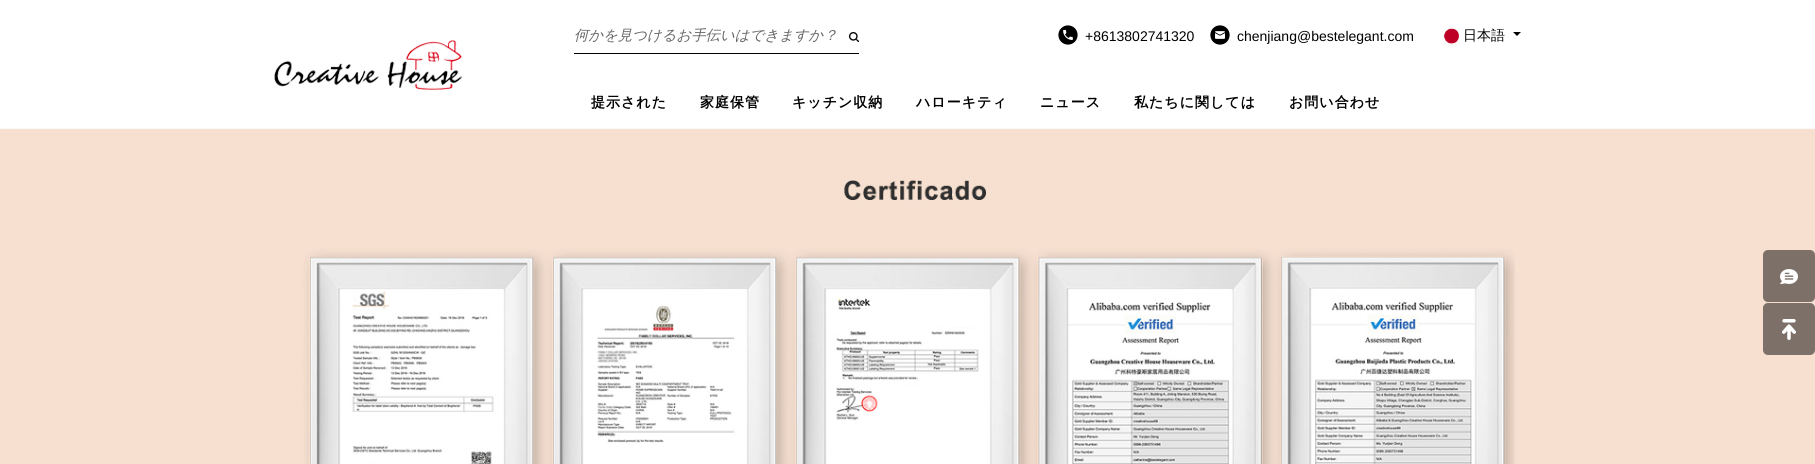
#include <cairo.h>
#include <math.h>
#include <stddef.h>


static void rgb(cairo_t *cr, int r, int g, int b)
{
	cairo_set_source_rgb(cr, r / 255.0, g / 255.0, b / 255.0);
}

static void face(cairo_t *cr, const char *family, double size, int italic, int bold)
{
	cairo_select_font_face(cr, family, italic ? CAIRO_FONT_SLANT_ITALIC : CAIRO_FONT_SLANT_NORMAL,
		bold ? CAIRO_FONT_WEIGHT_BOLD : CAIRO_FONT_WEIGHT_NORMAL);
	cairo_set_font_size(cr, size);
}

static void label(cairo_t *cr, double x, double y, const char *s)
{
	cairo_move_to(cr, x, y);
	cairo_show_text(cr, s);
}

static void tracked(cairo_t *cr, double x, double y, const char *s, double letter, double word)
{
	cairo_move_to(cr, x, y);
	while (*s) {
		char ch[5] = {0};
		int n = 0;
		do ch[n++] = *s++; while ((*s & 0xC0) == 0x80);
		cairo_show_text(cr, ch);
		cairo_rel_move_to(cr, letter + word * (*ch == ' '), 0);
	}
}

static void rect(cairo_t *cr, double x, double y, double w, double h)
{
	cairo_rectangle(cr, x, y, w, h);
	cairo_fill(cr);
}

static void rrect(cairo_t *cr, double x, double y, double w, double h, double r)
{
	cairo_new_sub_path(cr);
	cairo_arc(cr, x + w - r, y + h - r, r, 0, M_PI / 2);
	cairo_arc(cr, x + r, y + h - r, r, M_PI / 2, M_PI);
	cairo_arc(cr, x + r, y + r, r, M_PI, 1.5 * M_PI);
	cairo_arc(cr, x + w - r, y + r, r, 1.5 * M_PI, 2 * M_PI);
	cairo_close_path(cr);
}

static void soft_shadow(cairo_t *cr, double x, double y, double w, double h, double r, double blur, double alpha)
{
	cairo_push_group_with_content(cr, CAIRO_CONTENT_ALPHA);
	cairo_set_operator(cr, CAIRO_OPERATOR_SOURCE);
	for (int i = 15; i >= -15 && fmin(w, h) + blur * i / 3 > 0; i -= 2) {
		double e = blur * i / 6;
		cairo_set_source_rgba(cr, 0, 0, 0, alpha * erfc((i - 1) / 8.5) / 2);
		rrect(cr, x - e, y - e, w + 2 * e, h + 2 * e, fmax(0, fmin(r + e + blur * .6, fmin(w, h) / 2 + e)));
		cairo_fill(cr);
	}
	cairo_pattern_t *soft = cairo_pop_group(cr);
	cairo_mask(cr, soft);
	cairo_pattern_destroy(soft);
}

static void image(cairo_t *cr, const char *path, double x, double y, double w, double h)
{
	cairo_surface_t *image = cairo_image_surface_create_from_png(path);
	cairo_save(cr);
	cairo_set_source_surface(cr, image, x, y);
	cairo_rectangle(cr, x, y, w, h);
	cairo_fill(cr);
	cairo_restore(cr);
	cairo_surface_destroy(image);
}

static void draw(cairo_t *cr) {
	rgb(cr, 255, 255, 255);
	cairo_paint(cr);
	rgb(cr, 249, 249, 249);
	rect(cr, 0, 128, 1815, 1);
	image(cr, "image0.png", 274, 40, 189, 50);
	rgb(cr, 0, 0, 0);
	rect(cr, 574, 53, 285, 1);
	face(cr, "WenQuanYi Zen Hei Medium", 14.4, 1, 0);
	rgb(cr, 102, 102, 102);
	label(cr, 574, 40, "何かを見つけるお手伝いはできますか？");
	image(cr, "image1.png", 849, 32, 10, 10);
	image(cr, "image2.png", 1058, 25, 20, 20);
	face(cr, "Liberation Sans", 14, 0, 0);
	rgb(cr, 0, 0, 0);
	label(cr, 1085, 41, "+8613802741320");
	image(cr, "image3.png", 1210, 25, 20, 20);
	label(cr, 1237, 41, "chenjiang@bestelegant.com");
	rgb(cr, 25, 29, 40);
	soft_shadow(cr, 1443, 30, 16, 16, 8, 2, 0.05);
	image(cr, "image4.png", 1444, 28, 15, 16);
	face(cr, "WenQuanYi Zen Hei Medium", 14, 0, 0);
	rgb(cr, 0, 0, 0);
	label(cr, 1463, 40, "日本語");
	cairo_new_path(cr);
	cairo_move_to(cr, 1513, 32);
	cairo_line_to(cr, 1521, 32);
	cairo_line_to(cr, 1517, 36);
	cairo_close_path(cr);
	cairo_fill(cr);
	face(cr, "WenQuanYi Zen Hei", 14, 0, 1);
	tracked(cr, 591, 107, "提示された", 1, 0);
	tracked(cr, 700, 107, "家庭保管", 1, 0);
	tracked(cr, 792, 107, "キッチン収納", 1, 0);
	tracked(cr, 916, 107, "ハローキティ", 1, 0);
	tracked(cr, 1040, 107, "ニュース", 1, 0);
	tracked(cr, 1134, 107, "私たちに関しては", 1, 0);
	tracked(cr, 1289, 107, "お問い合わせ", 1, 0);
	image(cr, "image5.png", 0, 129, 1815, 335);
	rgb(cr, 124, 112, 104);
	rrect(cr, 1763, 250, 52, 52, 5);
	cairo_fill(cr);
	image(cr, "image6.png", 1780, 269, 18, 15);
	rrect(cr, 1763, 303, 52, 52, 5);
	cairo_fill(cr);
	image(cr, "image7.png", 1782, 319, 14, 21);
}

int main(void) {
	cairo_surface_t *surface = cairo_image_surface_create(CAIRO_FORMAT_RGB24, 1815, 464);
	cairo_t *cr = cairo_create(surface);
	cairo_font_options_t *options = cairo_font_options_create();
	cairo_font_options_set_hint_metrics(options, CAIRO_HINT_METRICS_OFF);
	cairo_font_options_set_hint_style(options, CAIRO_HINT_STYLE_NONE);
	cairo_set_font_options(cr, options);
	cairo_set_miter_limit(cr, 4);
	draw(cr);
	cairo_surface_write_to_png(surface, "render.png");
	cairo_font_options_destroy(options);
	cairo_destroy(cr);
	cairo_surface_destroy(surface);
	return 0;
}
